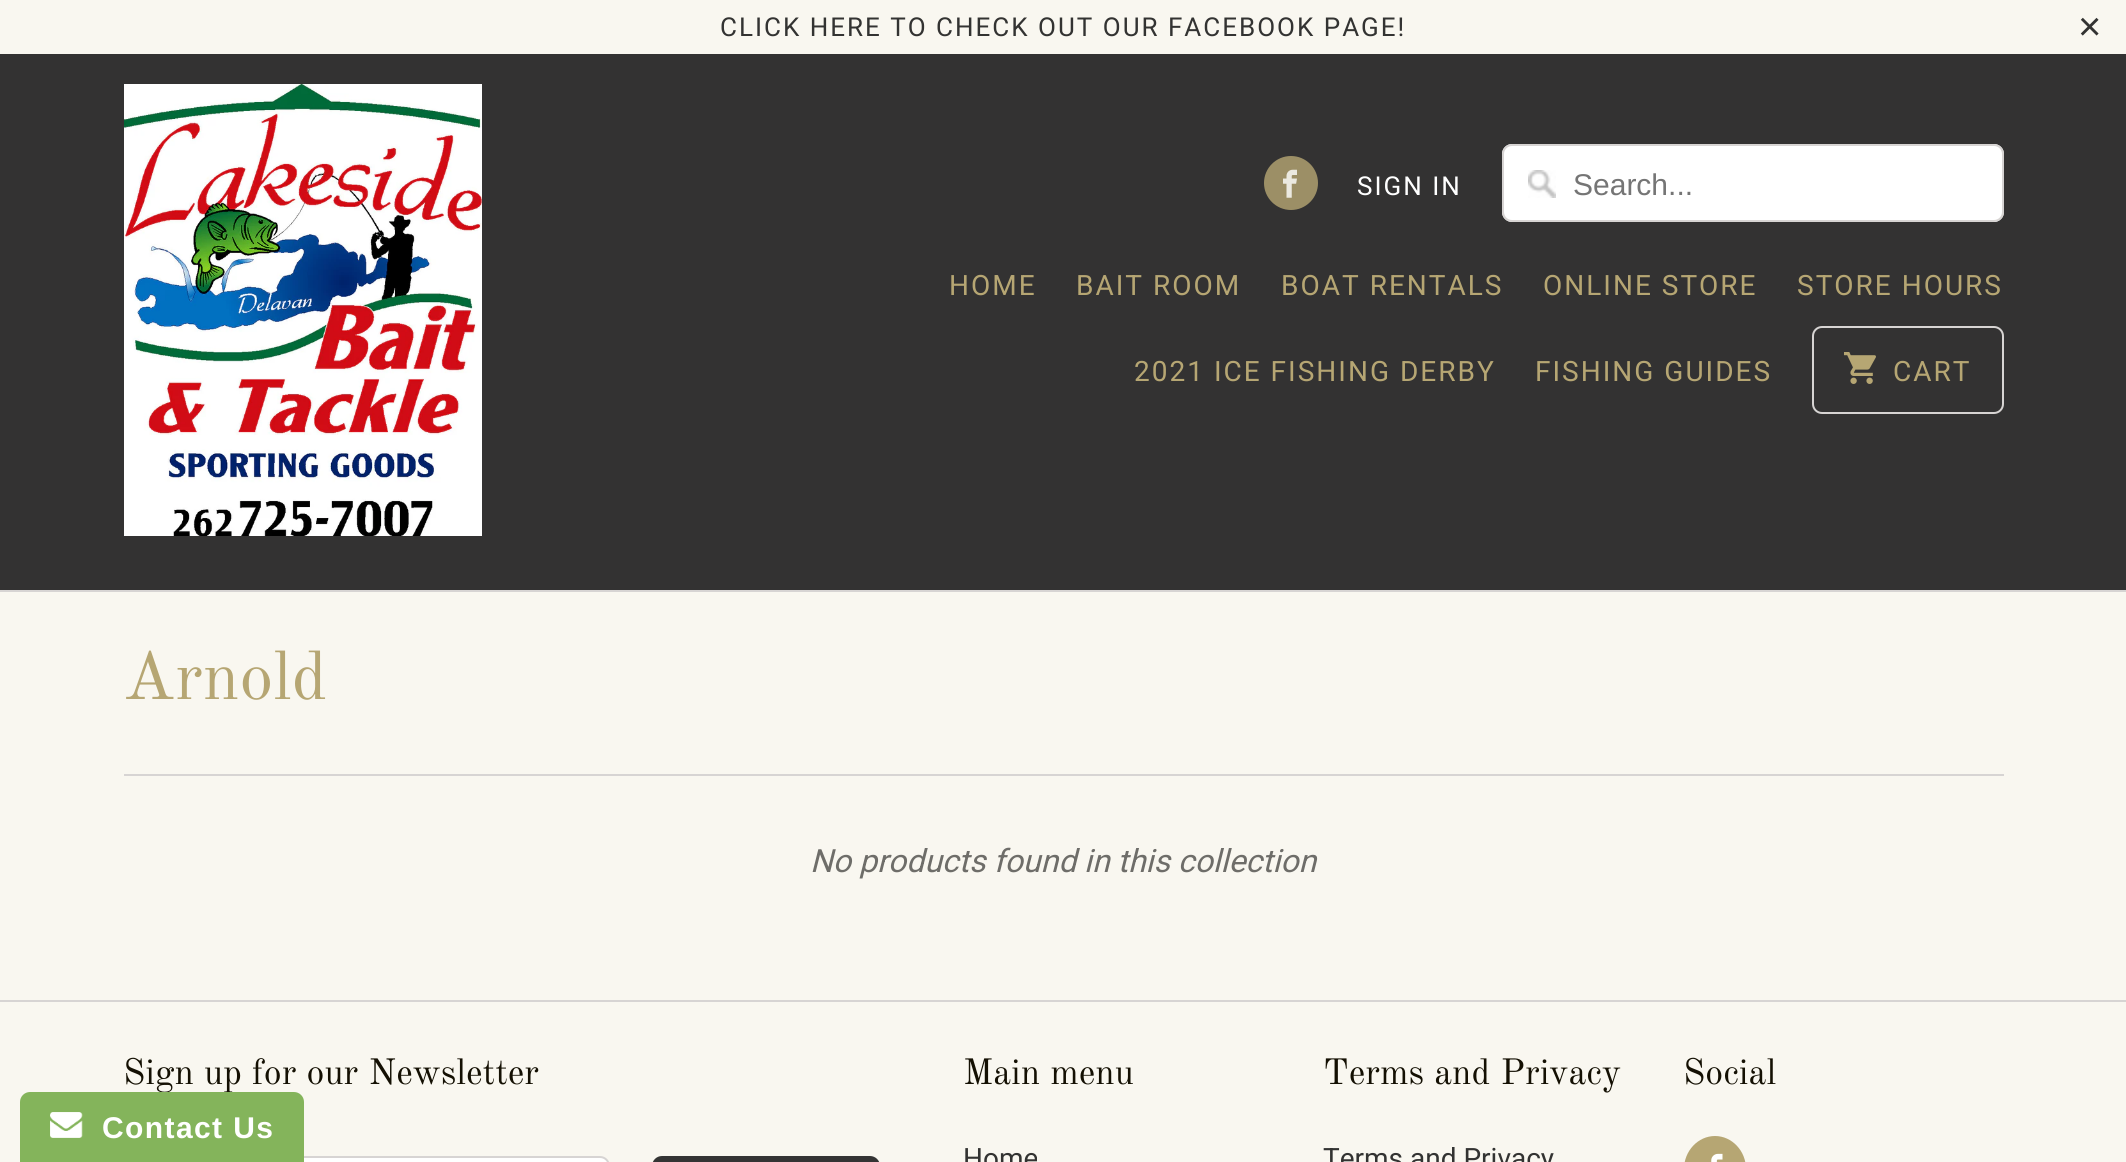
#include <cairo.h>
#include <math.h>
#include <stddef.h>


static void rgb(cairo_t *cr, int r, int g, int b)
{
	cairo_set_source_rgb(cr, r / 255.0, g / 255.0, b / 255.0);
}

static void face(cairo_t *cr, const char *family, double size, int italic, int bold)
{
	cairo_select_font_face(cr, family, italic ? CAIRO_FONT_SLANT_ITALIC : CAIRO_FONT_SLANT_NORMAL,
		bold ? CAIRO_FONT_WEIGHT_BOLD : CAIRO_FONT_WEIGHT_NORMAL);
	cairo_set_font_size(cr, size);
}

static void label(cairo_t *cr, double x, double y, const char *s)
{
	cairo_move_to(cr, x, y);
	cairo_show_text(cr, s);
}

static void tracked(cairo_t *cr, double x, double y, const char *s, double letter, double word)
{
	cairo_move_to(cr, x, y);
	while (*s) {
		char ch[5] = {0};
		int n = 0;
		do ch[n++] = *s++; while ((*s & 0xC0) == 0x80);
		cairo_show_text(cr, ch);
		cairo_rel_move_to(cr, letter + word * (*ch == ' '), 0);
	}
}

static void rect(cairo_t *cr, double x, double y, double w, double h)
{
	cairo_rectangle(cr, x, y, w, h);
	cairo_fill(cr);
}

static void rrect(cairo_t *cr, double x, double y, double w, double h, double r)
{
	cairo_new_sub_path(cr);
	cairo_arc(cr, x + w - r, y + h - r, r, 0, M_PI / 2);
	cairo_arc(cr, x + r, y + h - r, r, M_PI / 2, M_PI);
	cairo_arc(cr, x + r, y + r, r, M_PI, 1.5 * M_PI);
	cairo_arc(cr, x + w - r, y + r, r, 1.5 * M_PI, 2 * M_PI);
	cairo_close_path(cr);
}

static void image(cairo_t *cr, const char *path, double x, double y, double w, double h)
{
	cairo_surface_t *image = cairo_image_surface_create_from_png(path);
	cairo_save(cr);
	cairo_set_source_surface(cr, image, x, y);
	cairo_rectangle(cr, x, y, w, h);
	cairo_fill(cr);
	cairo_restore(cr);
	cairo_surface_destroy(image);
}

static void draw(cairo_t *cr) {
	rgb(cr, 249, 247, 240);
	cairo_paint(cr);
	face(cr, "Roboto", 26, 0, 0);
	rgb(cr, 51, 51, 50);
	tracked(cr, 720, 36, "CLICK HERE TO CHECK OUT OUR FACEBOOK PAGE!", 2, 0);
	face(cr, "Liberation Sans", 40, 0, 0);
	tracked(cr, 2078, 40, "×", 2, 0);
	rgb(cr, 51, 50, 50);
	rect(cr, 0, 54, 2126, 536);
	rgb(cr, 215, 212, 211);
	rect(cr, 0, 590, 2126, 2);
	image(cr, "image0.png", 124, 84, 358, 452);
	rgb(cr, 156, 143, 102);
	cairo_arc(cr, 1291, 183, 27, 0, 2 * M_PI);
	cairo_fill(cr);
	image(cr, "image1.png", 1283, 169, 14, 29);
	face(cr, "Roboto", 26, 0, 0);
	rgb(cr, 255, 255, 255);
	tracked(cr, 1357, 195, "SIGN IN", 2, 0);
	rrect(cr, 1502, 144, 502, 78, 10);
	cairo_fill(cr);
	image(cr, "image2.png", 1528, 170, 28, 28);
	rrect(cr, 1503, 145, 500, 76, 9);
	rgb(cr, 215, 212, 211);
	cairo_stroke(cr);
	face(cr, "Liberation Sans", 30, 0, 0);
	rgb(cr, 117, 117, 117);
	label(cr, 1573, 195, "Search...");
	face(cr, "Roboto", 28, 0, 0);
	rgb(cr, 182, 166, 115);
	tracked(cr, 949, 295, "HOME", 2, 0);
	tracked(cr, 1076, 295, "BAIT ROOM", 2, 0);
	tracked(cr, 1281, 295, "BOAT RENTALS", 2, 0);
	tracked(cr, 1543, 295, "ONLINE STORE", 2, 0);
	tracked(cr, 1797, 295, "STORE HOURS", 2, 0);
	tracked(cr, 1134, 381, "2021 ICE FISHING DERBY", 2, 0);
	tracked(cr, 1535, 381, "FISHING GUIDES", 2, 0);
	rrect(cr, 1813, 327, 190, 86, 9);
	rgb(cr, 215, 212, 211);
	cairo_stroke(cr);
	image(cr, "image3.png", 1844, 352, 32, 32);
	rgb(cr, 182, 166, 115);
	tracked(cr, 1893, 381, "CART", 2, 0);
	rgb(cr, 215, 212, 211);
	rect(cr, 124, 774, 1880, 2);
	face(cr, "Old Standard TT", 68, 0, 0);
	rgb(cr, 182, 166, 115);
	label(cr, 123, 699, "Arnold");
	face(cr, "Roboto", 32, 1, 0);
	rgb(cr, 110, 109, 105);
	label(cr, 810, 872, "No products found in this collection");
	rgb(cr, 215, 212, 211);
	rect(cr, 0, 1000, 2126, 2);
	face(cr, "Old Standard TT", 36, 0, 0);
	rgb(cr, 20, 16, 3);
	label(cr, 123, 1084, "Sign up for our Newsletter");
	rgb(cr, 255, 255, 255);
	rrect(cr, 125, 1157, 484, 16, 9);
	cairo_fill_preserve(cr);
	rgb(cr, 215, 212, 211);
	cairo_stroke(cr);
	rgb(cr, 52, 52, 52);
	rrect(cr, 652, 1156, 228, 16, 10);
	cairo_fill(cr);
	rgb(cr, 20, 16, 3);
	label(cr, 963, 1084, "Main menu");
	face(cr, "Roboto", 28, 0, 0);
	rgb(cr, 51, 51, 50);
	label(cr, 963, 1168, "Home");
	face(cr, "Old Standard TT", 36, 0, 0);
	rgb(cr, 20, 16, 3);
	label(cr, 1323, 1084, "Terms and Privacy");
	face(cr, "Roboto", 28, 0, 0);
	rgb(cr, 51, 51, 50);
	label(cr, 1323, 1168, "Terms and Privacy");
	face(cr, "Old Standard TT", 36, 0, 0);
	rgb(cr, 20, 16, 3);
	label(cr, 1683, 1084, "Social");
	rgb(cr, 182, 166, 115);
	cairo_new_path(cr);
	cairo_move_to(cr, 1715, 1136);
	cairo_curve_to(cr, 1732, 1136, 1746, 1151, 1746, 1169);
	cairo_curve_to(cr, 1746, 1187, 1732, 1202, 1715, 1202);
	cairo_curve_to(cr, 1698, 1202, 1684, 1187, 1684, 1169);
	cairo_curve_to(cr, 1684, 1151, 1698, 1136, 1715, 1136);
	cairo_close_path(cr);
	cairo_fill(cr);
	image(cr, "image4.png", 1711, 1153, 12, 9);
	rgb(cr, 132, 180, 91);
	cairo_new_path(cr);
	cairo_move_to(cr, 30, 1092);
	cairo_line_to(cr, 294, 1092);
	cairo_curve_to(cr, 299.5, 1092, 304, 1096.5, 304, 1102);
	cairo_line_to(cr, 304, 1162);
	cairo_line_to(cr, 20, 1162);
	cairo_line_to(cr, 20, 1102);
	cairo_curve_to(cr, 20, 1096.5, 24.5, 1092, 30, 1092);
	cairo_close_path(cr);
	cairo_fill(cr);
	image(cr, "image5.png", 50, 1112, 33, 26);
	face(cr, "Liberation Sans", 30, 0, 1);
	rgb(cr, 255, 255, 255);
	tracked(cr, 102, 1138, "Contact Us", 1.4, 0);
}

int main(void) {
	cairo_surface_t *surface = cairo_image_surface_create(CAIRO_FORMAT_RGB24, 2126, 1162);
	cairo_t *cr = cairo_create(surface);
	cairo_font_options_t *options = cairo_font_options_create();
	cairo_font_options_set_hint_metrics(options, CAIRO_HINT_METRICS_OFF);
	cairo_font_options_set_hint_style(options, CAIRO_HINT_STYLE_NONE);
	cairo_set_font_options(cr, options);
	cairo_set_miter_limit(cr, 4);
	draw(cr);
	cairo_surface_write_to_png(surface, "render.png");
	cairo_font_options_destroy(options);
	cairo_destroy(cr);
	cairo_surface_destroy(surface);
	return 0;
}
